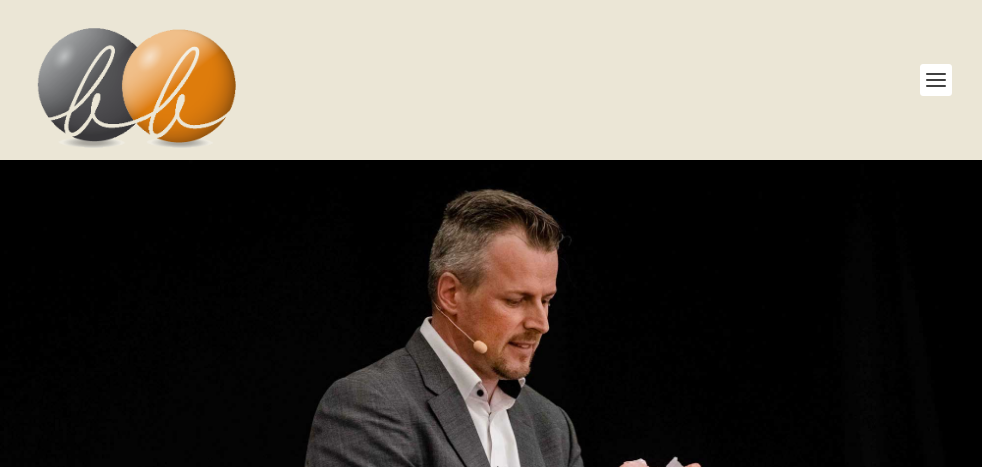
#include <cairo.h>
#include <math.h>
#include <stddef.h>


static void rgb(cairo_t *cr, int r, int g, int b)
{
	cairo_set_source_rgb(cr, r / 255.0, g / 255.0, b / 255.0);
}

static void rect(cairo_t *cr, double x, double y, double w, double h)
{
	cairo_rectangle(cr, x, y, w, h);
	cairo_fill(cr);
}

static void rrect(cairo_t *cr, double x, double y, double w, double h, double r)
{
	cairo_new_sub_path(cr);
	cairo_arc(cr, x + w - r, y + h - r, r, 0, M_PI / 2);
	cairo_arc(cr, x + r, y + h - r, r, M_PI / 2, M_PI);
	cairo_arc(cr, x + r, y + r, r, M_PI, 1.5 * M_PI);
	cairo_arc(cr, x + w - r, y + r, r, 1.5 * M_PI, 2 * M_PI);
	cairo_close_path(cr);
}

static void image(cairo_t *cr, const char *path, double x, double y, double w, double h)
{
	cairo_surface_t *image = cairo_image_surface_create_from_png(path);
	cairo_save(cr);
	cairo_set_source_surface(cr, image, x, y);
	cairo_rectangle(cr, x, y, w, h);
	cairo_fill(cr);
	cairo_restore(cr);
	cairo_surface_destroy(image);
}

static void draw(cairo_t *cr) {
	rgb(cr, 255, 255, 255);
	cairo_paint(cr);
	rgb(cr, 235, 230, 214);
	rect(cr, 0, 0, 982, 160);
	image(cr, "image0.png", 37, 28, 199, 120);
	rgb(cr, 255, 255, 255);
	rrect(cr, 920, 64, 32, 32, 3);
	cairo_fill(cr);
	rgb(cr, 64, 64, 64);
	rrect(cr, 926, 73, 20, 2, 1);
	cairo_fill(cr);
	rrect(cr, 926, 79, 20, 2, 1);
	cairo_fill(cr);
	rrect(cr, 926, 85, 20, 2, 1);
	cairo_fill(cr);
	image(cr, "image1.png", 0, 160, 982, 307);
}

int main(void) {
	cairo_surface_t *surface = cairo_image_surface_create(CAIRO_FORMAT_RGB24, 982, 467);
	cairo_t *cr = cairo_create(surface);
	cairo_font_options_t *options = cairo_font_options_create();
	cairo_font_options_set_hint_metrics(options, CAIRO_HINT_METRICS_OFF);
	cairo_font_options_set_hint_style(options, CAIRO_HINT_STYLE_NONE);
	cairo_set_font_options(cr, options);
	cairo_set_miter_limit(cr, 4);
	draw(cr);
	cairo_surface_write_to_png(surface, "render.png");
	cairo_font_options_destroy(options);
	cairo_destroy(cr);
	cairo_surface_destroy(surface);
	return 0;
}
